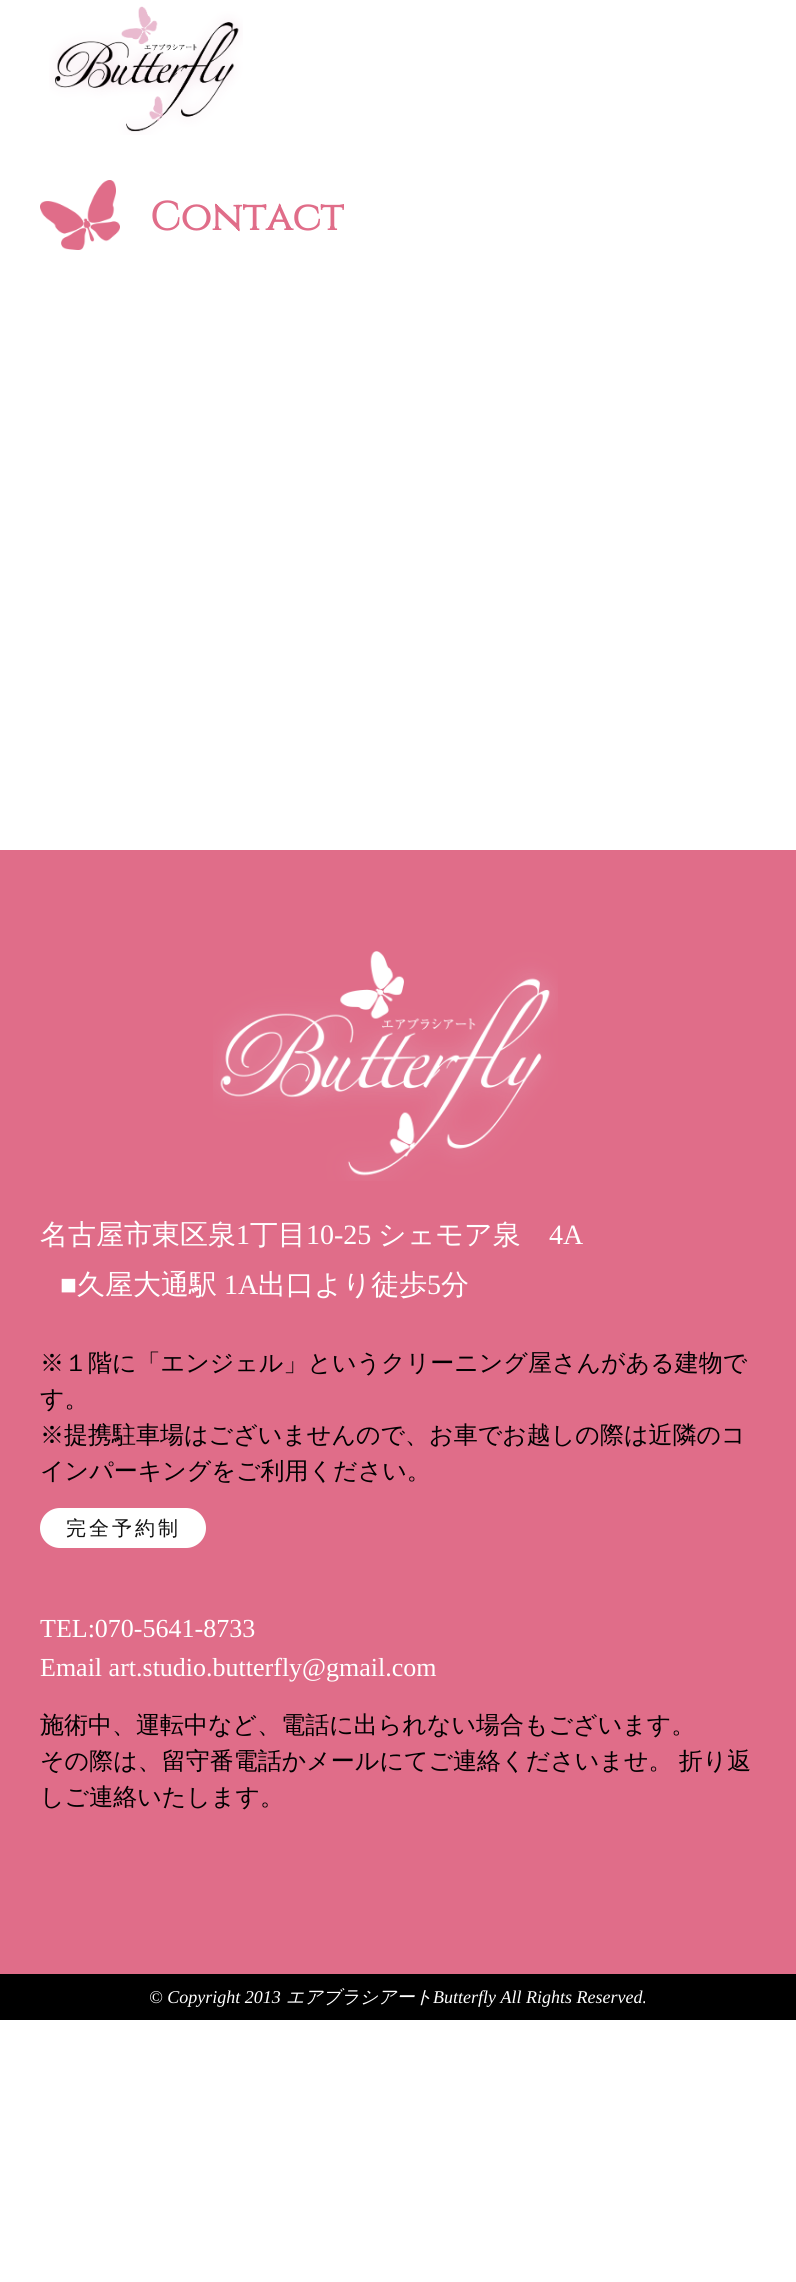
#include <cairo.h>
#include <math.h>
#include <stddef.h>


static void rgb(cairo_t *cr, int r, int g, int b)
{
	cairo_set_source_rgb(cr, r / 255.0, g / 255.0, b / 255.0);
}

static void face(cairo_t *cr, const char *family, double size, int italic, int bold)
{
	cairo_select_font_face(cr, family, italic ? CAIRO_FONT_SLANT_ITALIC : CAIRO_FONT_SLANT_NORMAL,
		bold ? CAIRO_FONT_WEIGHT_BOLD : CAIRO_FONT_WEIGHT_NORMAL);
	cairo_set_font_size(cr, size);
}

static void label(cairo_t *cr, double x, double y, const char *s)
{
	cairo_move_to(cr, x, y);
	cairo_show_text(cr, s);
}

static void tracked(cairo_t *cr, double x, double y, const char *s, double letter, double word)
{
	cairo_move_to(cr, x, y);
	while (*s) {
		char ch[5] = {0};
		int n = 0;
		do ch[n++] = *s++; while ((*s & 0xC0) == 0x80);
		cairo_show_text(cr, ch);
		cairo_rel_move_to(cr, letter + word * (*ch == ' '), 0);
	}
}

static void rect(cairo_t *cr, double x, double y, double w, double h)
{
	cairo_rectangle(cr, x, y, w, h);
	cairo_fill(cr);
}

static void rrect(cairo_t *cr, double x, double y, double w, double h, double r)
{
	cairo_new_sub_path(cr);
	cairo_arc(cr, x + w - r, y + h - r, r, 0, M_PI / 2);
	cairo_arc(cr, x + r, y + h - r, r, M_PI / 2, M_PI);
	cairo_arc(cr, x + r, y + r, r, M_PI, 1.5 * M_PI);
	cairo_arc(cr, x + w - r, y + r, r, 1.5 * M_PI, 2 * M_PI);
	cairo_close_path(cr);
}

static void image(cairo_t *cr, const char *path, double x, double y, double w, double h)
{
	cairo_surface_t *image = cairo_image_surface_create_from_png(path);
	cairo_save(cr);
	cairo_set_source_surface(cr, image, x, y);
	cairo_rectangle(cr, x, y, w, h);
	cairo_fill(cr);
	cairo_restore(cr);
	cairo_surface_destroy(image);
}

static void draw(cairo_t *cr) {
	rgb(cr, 255, 255, 255);
	cairo_paint(cr);
	image(cr, "image0.png", 49, 6, 194, 129);
	image(cr, "image1.png", 40, 180, 80, 70);
	face(cr, "Cinzel", 40, 0, 1);
	rgb(cr, 224, 109, 137);
	label(cr, 150, 230, "Contact");
	rect(cr, 0, 850, 796, 1124);
	image(cr, "image2.png", 213, 951, 345, 230);
	face(cr, "WenQuanYi Zen Hei Medium", 28, 0, 0);
	rgb(cr, 255, 255, 255);
	label(cr, 40, 1244, "名古屋市東区泉");
	face(cr, "Liberation Serif", 28, 0, 0);
	label(cr, 236, 1244, "1");
	face(cr, "WenQuanYi Zen Hei Medium", 28, 0, 0);
	label(cr, 250, 1244, "丁目");
	face(cr, "Liberation Serif", 28, 0, 0);
	label(cr, 306, 1244, "10-25");
	face(cr, "WenQuanYi Zen Hei Medium", 28, 0, 0);
	label(cr, 378, 1244, "シェモア泉");
	face(cr, "Liberation Serif", 28, 0, 0);
	label(cr, 549, 1244, "4A");
	label(cr, 60, 1294, "■");
	face(cr, "WenQuanYi Zen Hei Medium", 28, 0, 0);
	label(cr, 77, 1294, "久屋大通駅");
	face(cr, "Liberation Serif", 28, 0, 0);
	label(cr, 224, 1294, "1A");
	face(cr, "WenQuanYi Zen Hei Medium", 28, 0, 0);
	label(cr, 258, 1294, "出口より徒歩");
	face(cr, "Liberation Serif", 28, 0, 0);
	label(cr, 427, 1294, "5");
	face(cr, "WenQuanYi Zen Hei Medium", 28, 0, 0);
	label(cr, 441, 1294, "分");
	face(cr, "WenQuanYi Zen Hei Medium", 24, 0, 0);
	rgb(cr, 0, 0, 0);
	label(cr, 40, 1371, "※１階に「エンジェル」というクリーニング屋さんがある建物で");
	label(cr, 40, 1407, "す。");
	label(cr, 40, 1443, "※提携駐車場はございませんので、お車でお越しの際は近隣のコ");
	label(cr, 40, 1479, "インパーキングをご利用ください。");
	rgb(cr, 255, 255, 255);
	rrect(cr, 40, 1508, 166, 40, 20);
	cairo_fill(cr);
	face(cr, "WenQuanYi Zen Hei Medium", 20, 0, 0);
	rgb(cr, 17, 17, 17);
	tracked(cr, 66, 1535, "完全予約制", 3, 0);
	face(cr, "Liberation Serif", 26, 0, 0);
	rgb(cr, 255, 255, 255);
	label(cr, 40, 1637, "TEL:070-5641-8733");
	label(cr, 40, 1676, "Email art.studio.butterfly@gmail.com");
	face(cr, "WenQuanYi Zen Hei Medium", 24, 0, 0);
	rgb(cr, 0, 0, 0);
	label(cr, 40, 1733, "施術中、運転中など、電話に出られない場合もございます。");
	tracked(cr, 40, 1769, "その際は、留守番電話かメールにてご連絡くださいませ。 折り返", 0, -1);
	label(cr, 40, 1805, "しご連絡いたします。");
	rect(cr, 0, 1974, 796, 46);
	face(cr, "Liberation Serif", 18, 1, 0);
	rgb(cr, 255, 255, 255);
	label(cr, 149, 2003, "© Copyright 2013");
	face(cr, "WenQuanYi Zen Hei Medium", 18, 1, 0);
	label(cr, 286, 2003, "エアブラシアート");
	face(cr, "Liberation Serif", 18, 1, 0);
	label(cr, 433, 2003, "Butterfly All Rights Reserved.");
}

int main(void) {
	cairo_surface_t *surface = cairo_image_surface_create(CAIRO_FORMAT_RGB24, 796, 2282);
	cairo_t *cr = cairo_create(surface);
	cairo_font_options_t *options = cairo_font_options_create();
	cairo_font_options_set_hint_metrics(options, CAIRO_HINT_METRICS_OFF);
	cairo_font_options_set_hint_style(options, CAIRO_HINT_STYLE_NONE);
	cairo_set_font_options(cr, options);
	cairo_set_miter_limit(cr, 4);
	draw(cr);
	cairo_surface_write_to_png(surface, "render.png");
	cairo_font_options_destroy(options);
	cairo_destroy(cr);
	cairo_surface_destroy(surface);
	return 0;
}
